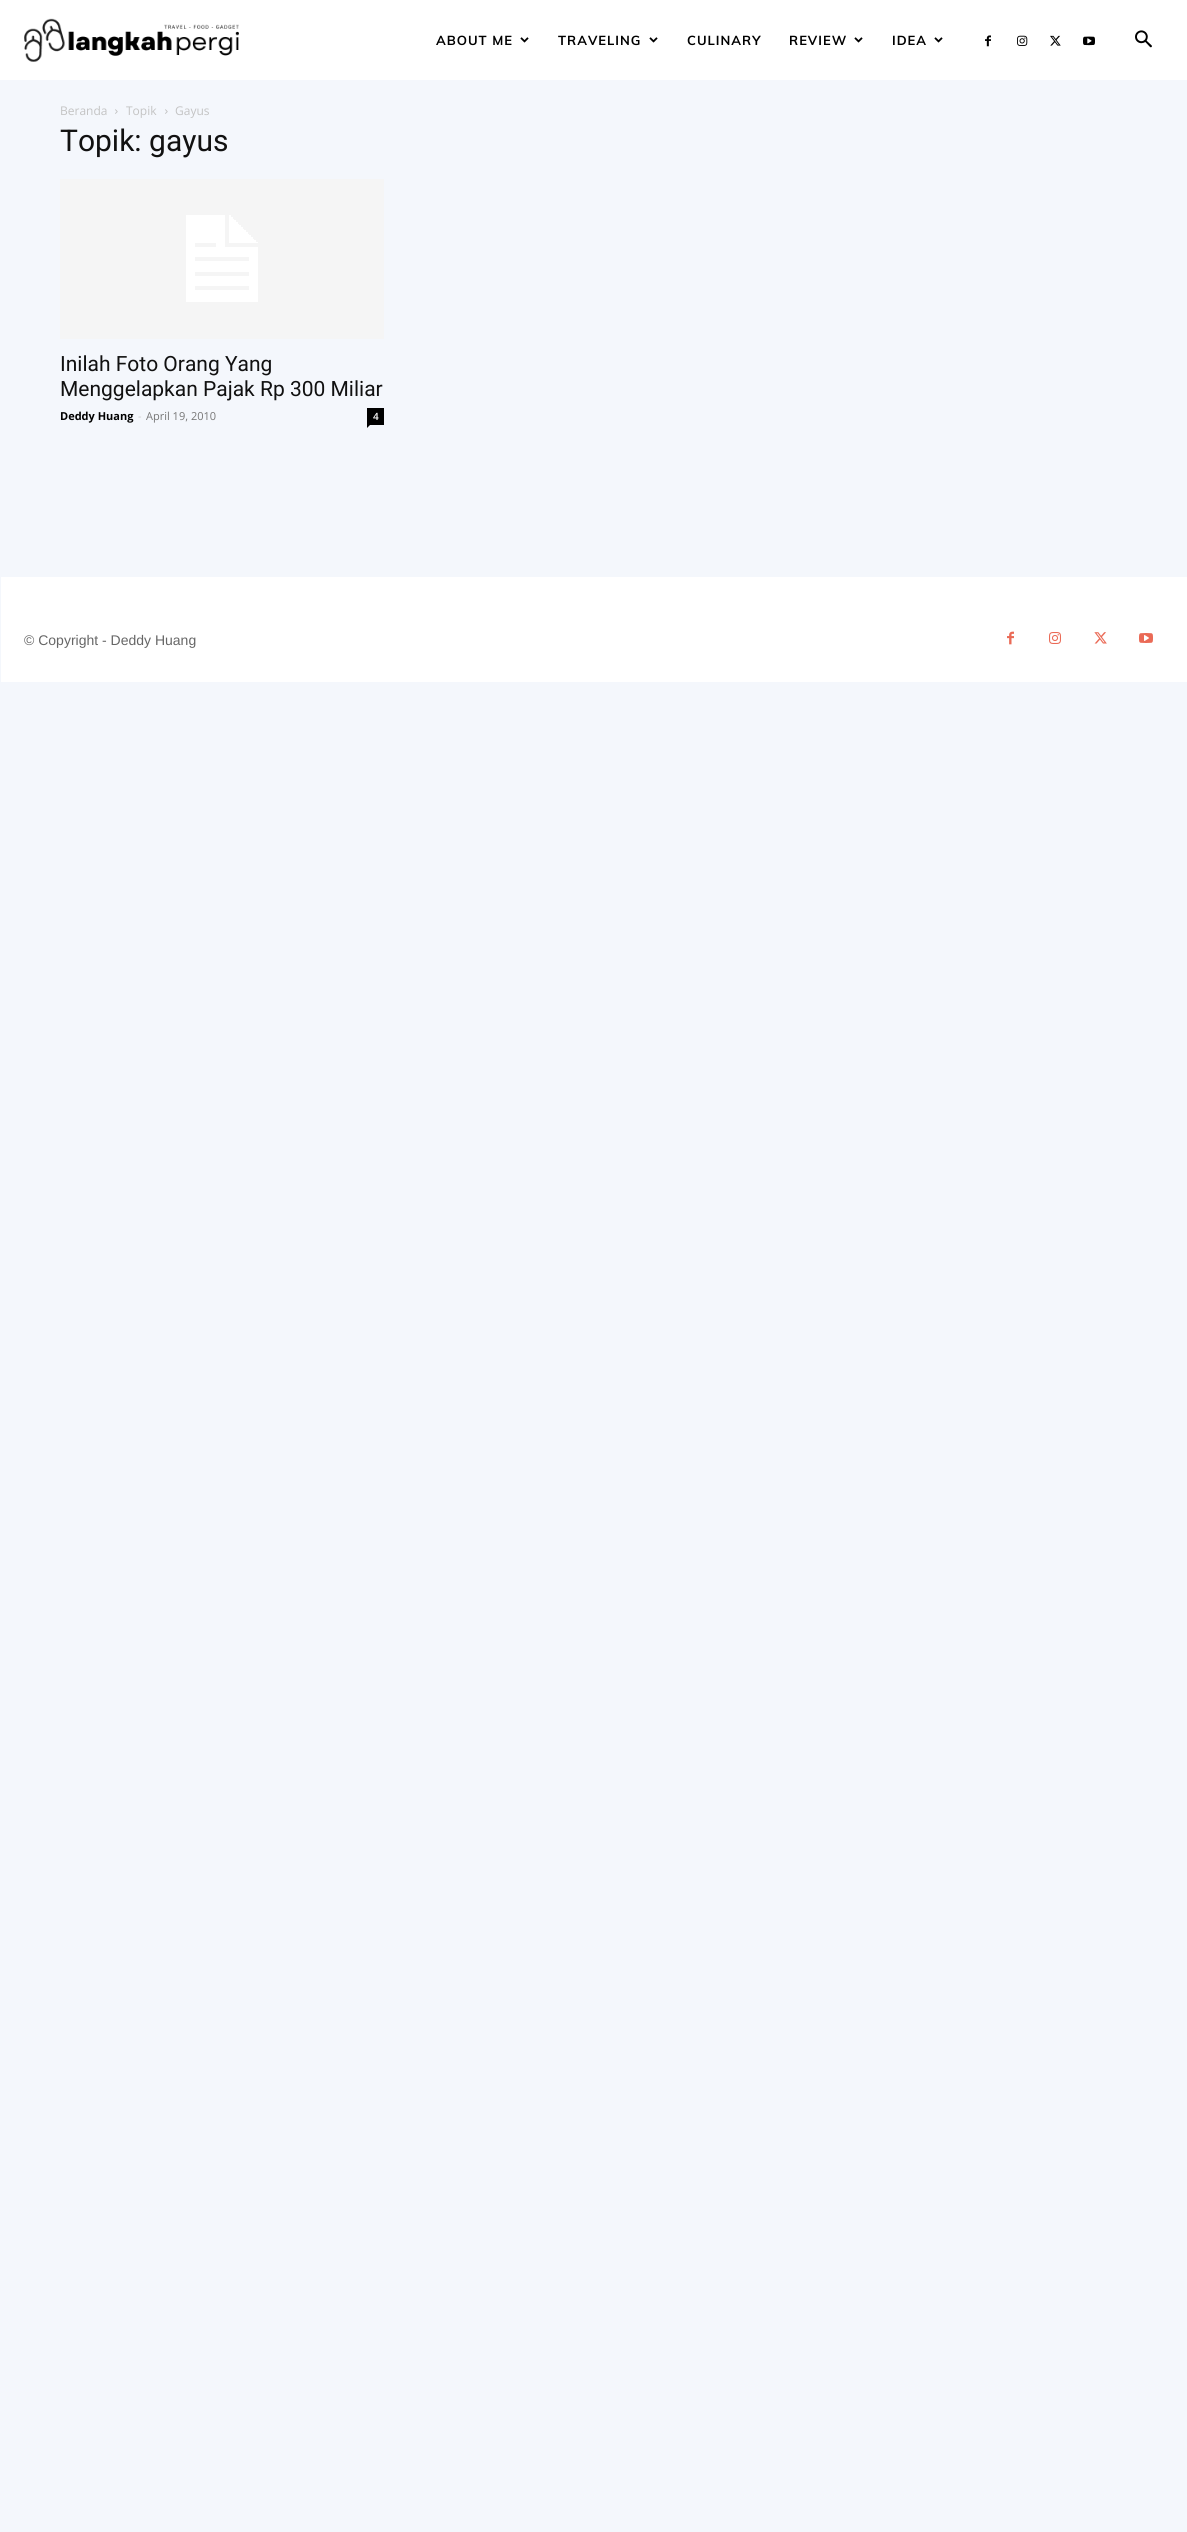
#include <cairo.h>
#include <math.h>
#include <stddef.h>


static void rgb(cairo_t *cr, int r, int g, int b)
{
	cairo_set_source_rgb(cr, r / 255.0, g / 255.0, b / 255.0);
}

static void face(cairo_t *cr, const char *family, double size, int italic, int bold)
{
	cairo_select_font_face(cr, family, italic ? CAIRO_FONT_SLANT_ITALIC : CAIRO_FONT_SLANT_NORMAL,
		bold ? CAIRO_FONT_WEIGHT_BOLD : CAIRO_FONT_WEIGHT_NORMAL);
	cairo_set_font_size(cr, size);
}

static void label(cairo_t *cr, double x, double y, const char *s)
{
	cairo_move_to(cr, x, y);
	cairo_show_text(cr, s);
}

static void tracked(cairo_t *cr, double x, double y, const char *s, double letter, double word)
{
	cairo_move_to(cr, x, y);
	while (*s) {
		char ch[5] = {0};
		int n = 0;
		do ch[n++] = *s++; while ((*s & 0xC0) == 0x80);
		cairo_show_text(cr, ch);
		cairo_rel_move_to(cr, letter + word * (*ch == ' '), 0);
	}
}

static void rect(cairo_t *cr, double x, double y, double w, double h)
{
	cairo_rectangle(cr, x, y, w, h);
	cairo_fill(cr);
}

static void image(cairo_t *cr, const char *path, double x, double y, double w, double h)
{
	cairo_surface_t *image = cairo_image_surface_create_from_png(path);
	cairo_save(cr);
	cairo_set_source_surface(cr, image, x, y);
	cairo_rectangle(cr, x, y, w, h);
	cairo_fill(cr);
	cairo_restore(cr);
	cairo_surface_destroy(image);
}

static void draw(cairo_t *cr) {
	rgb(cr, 244, 247, 252);
	cairo_paint(cr);
	rgb(cr, 255, 255, 255);
	rect(cr, 0, 0, 1187, 80);
	image(cr, "image0.png", 24, 18, 215, 44);
	face(cr, "Muli", 13, 0, 1);
	rgb(cr, 0, 0, 0);
	tracked(cr, 436, 45, "ABOUT ME", 1, 0);
	image(cr, "image1.png", 520, 37, 9, 6);
	tracked(cr, 558, 45, "TRAVELING", 1, 0);
	image(cr, "image1.png", 649, 37, 9, 6);
	tracked(cr, 687, 45, "CULINARY", 1, 0);
	tracked(cr, 789, 45, "REVIEW", 1, 0);
	image(cr, "image1.png", 854, 37, 9, 6);
	tracked(cr, 892, 45, "IDEA", 1, 0);
	image(cr, "image1.png", 934, 37, 9, 6);
	image(cr, "image2.png", 985, 35, 6, 12);
	image(cr, "image3.png", 1017, 35, 11, 11);
	image(cr, "image4.png", 1050, 35, 11, 11);
	image(cr, "image5.png", 1083, 36, 12, 10);
	image(cr, "image6.png", 1135, 30, 17, 18);
	face(cr, "Open Sans", 12, 0, 0);
	rgb(cr, 195, 195, 195);
	label(cr, 60, 115, "Beranda");
	image(cr, "image7.png", 115, 109, 3, 5);
	label(cr, 126, 115, "Topik");
	image(cr, "image7.png", 165, 109, 3, 5);
	label(cr, 175, 115, "Gayus");
	face(cr, "Roboto", 30, 0, 0);
	rgb(cr, 17, 17, 17);
	label(cr, 60, 151, "Topik: gayus");
	image(cr, "image8.png", 60, 179, 324, 160);
	face(cr, "Roboto", 21, 0, 0);
	label(cr, 60, 371, "Inilah Foto Orang Yang");
	label(cr, 60, 396, "Menggelapkan Pajak Rp 300 Miliar");
	face(cr, "Open Sans", 11, 0, 1);
	rgb(cr, 0, 0, 0);
	label(cr, 60, 420, "Deddy Huang");
	face(cr, "Open Sans", 11, 0, 0);
	rgb(cr, 204, 204, 204);
	label(cr, 138, 420, "-");
	rgb(cr, 118, 118, 118);
	label(cr, 146, 420, "April 19, 2010");
	rgb(cr, 0, 0, 0);
	rect(cr, 367, 408, 17, 17);
	face(cr, "Open Sans SemiBold", 10, 0, 0);
	rgb(cr, 255, 255, 255);
	label(cr, 373, 420, "4");
	rgb(cr, 0, 0, 0);
	cairo_new_path(cr);
	cairo_move_to(cr, 367, 425);
	cairo_line_to(cr, 370, 425);
	cairo_line_to(cr, 367, 428);
	cairo_close_path(cr);
	cairo_fill(cr);
	rgb(cr, 255, 255, 255);
	rect(cr, 1, 577, 1186, 105);
	face(cr, "Liberation Sans", 14, 0, 0);
	rgb(cr, 102, 102, 102);
	label(cr, 24, 645, "© Copyright - Deddy Huang");
	image(cr, "image9.png", 1007, 631, 7, 14);
	image(cr, "image10.png", 1049, 632, 12, 12);
	image(cr, "image11.png", 1094, 632, 13, 12);
	image(cr, "image12.png", 1139, 633, 14, 10);
}

int main(void) {
	cairo_surface_t *surface = cairo_image_surface_create(CAIRO_FORMAT_RGB24, 1187, 2532);
	cairo_t *cr = cairo_create(surface);
	cairo_font_options_t *options = cairo_font_options_create();
	cairo_font_options_set_hint_metrics(options, CAIRO_HINT_METRICS_OFF);
	cairo_font_options_set_hint_style(options, CAIRO_HINT_STYLE_NONE);
	cairo_set_font_options(cr, options);
	cairo_set_miter_limit(cr, 4);
	draw(cr);
	cairo_surface_write_to_png(surface, "render.png");
	cairo_font_options_destroy(options);
	cairo_destroy(cr);
	cairo_surface_destroy(surface);
	return 0;
}
